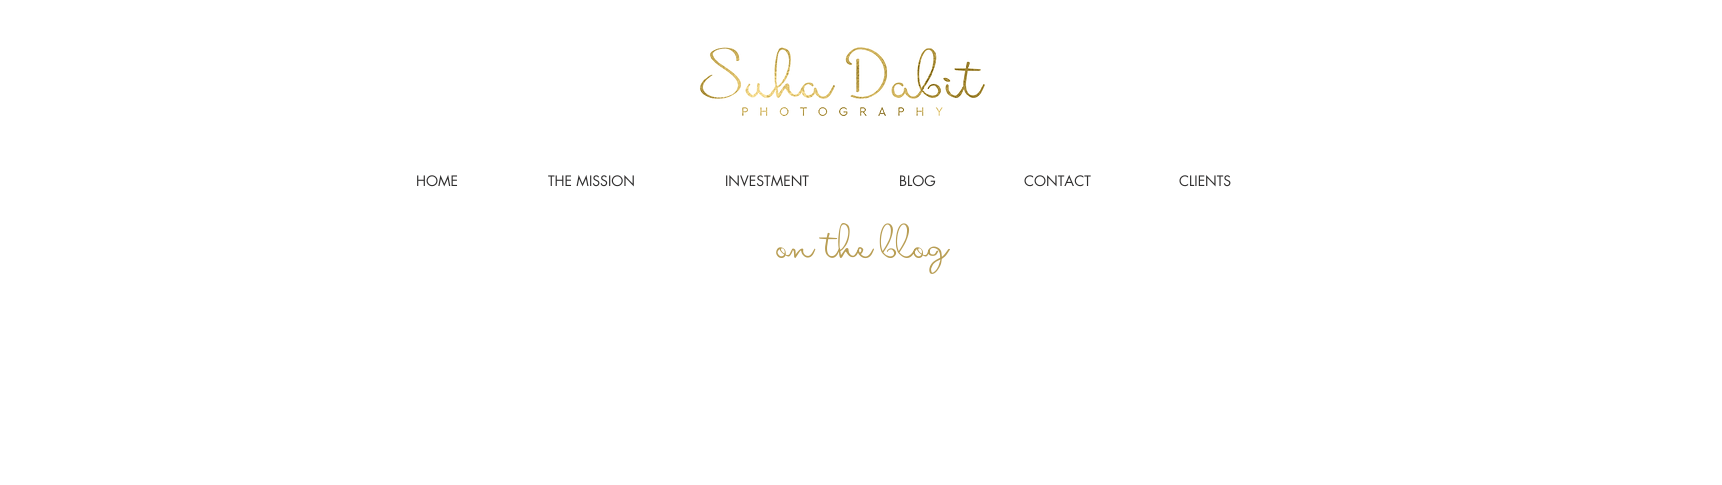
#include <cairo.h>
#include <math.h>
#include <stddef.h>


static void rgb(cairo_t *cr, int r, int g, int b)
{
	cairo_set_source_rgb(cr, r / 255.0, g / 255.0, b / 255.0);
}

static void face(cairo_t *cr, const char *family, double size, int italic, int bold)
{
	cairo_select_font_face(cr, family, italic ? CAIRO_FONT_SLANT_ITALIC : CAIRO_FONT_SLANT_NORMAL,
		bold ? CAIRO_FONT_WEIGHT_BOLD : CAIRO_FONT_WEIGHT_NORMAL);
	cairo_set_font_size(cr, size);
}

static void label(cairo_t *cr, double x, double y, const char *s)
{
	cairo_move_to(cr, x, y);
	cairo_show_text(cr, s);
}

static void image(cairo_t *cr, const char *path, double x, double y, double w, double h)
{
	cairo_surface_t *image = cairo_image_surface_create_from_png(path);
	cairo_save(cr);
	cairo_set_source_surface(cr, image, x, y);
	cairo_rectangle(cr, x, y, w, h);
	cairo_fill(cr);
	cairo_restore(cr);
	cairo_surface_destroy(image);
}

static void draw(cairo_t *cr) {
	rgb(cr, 255, 255, 255);
	cairo_paint(cr);
	image(cr, "image0.png", 699, 47, 286, 69);
	face(cr, "futura", 14, 0, 0);
	rgb(cr, 47, 46, 46);
	label(cr, 416, 186, "HOME");
	label(cr, 548, 186, "THE MISSION");
	label(cr, 725, 186, "INVESTMENT");
	label(cr, 899, 186, "BLOG");
	label(cr, 1024, 186, "CONTACT");
	label(cr, 1179, 186, "CLIENTS");
	face(cr, "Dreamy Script", 103, 0, 0);
	rgb(cr, 184, 157, 83);
	label(cr, 776, 258, "on the blog");
}

int main(void) {
	cairo_surface_t *surface = cairo_image_surface_create(CAIRO_FORMAT_RGB24, 1722, 485);
	cairo_t *cr = cairo_create(surface);
	cairo_font_options_t *options = cairo_font_options_create();
	cairo_font_options_set_hint_metrics(options, CAIRO_HINT_METRICS_OFF);
	cairo_font_options_set_hint_style(options, CAIRO_HINT_STYLE_NONE);
	cairo_set_font_options(cr, options);
	cairo_set_miter_limit(cr, 4);
	draw(cr);
	cairo_surface_write_to_png(surface, "render.png");
	cairo_font_options_destroy(options);
	cairo_destroy(cr);
	cairo_surface_destroy(surface);
	return 0;
}
